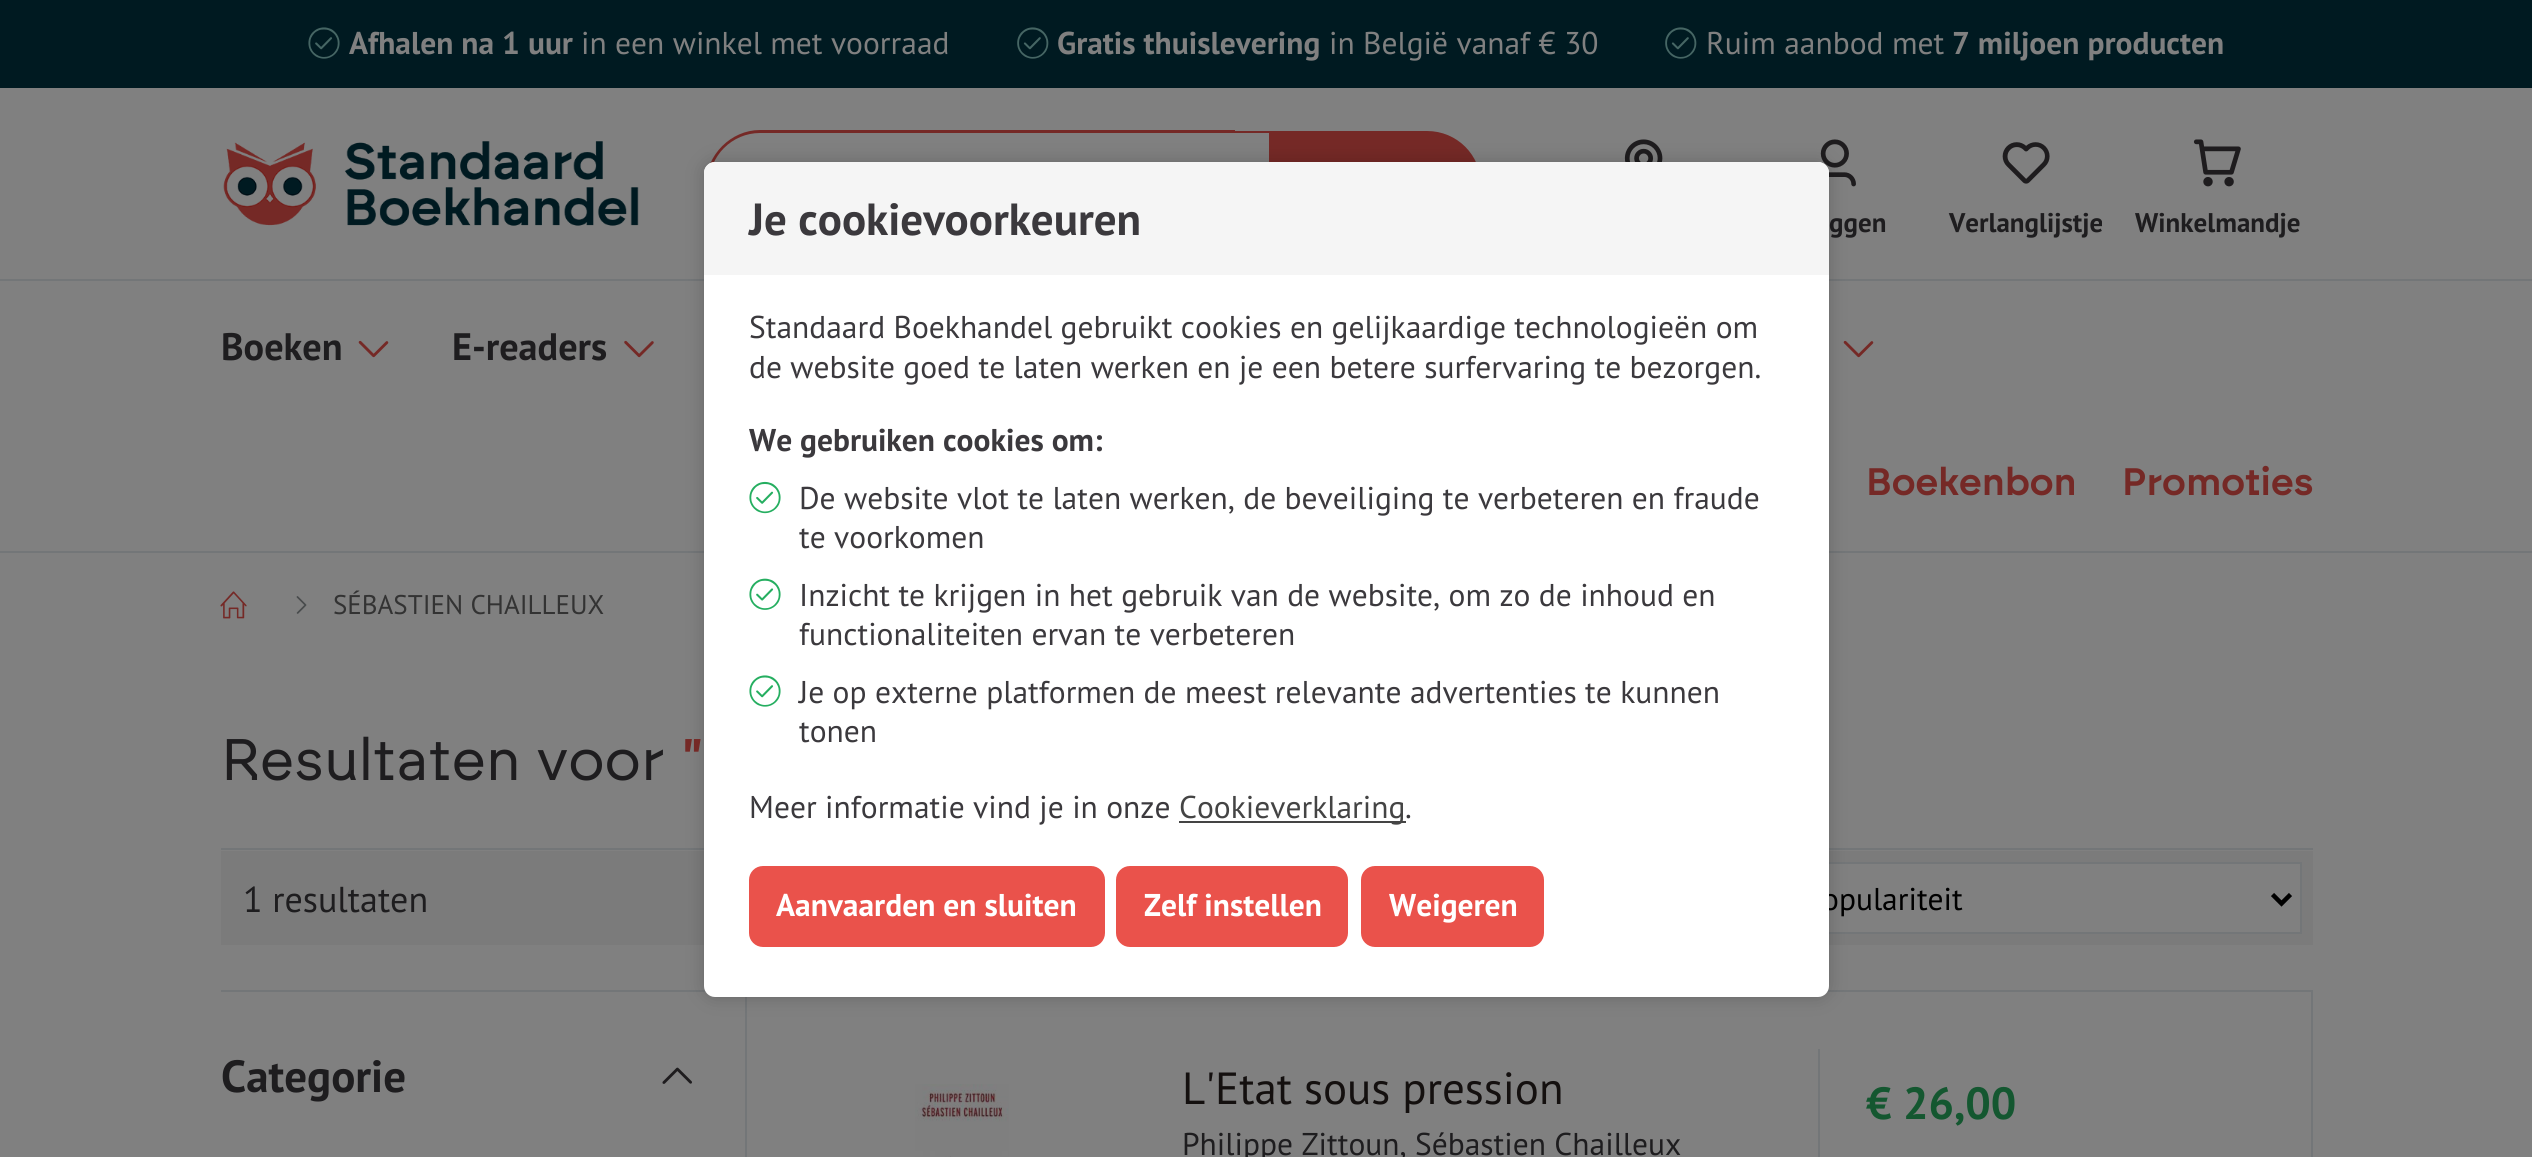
#include <cairo.h>
#include <math.h>
#include <stddef.h>


static void rgb(cairo_t *cr, int r, int g, int b)
{
	cairo_set_source_rgb(cr, r / 255.0, g / 255.0, b / 255.0);
}

static void face(cairo_t *cr, const char *family, double size, int italic, int bold)
{
	cairo_select_font_face(cr, family, italic ? CAIRO_FONT_SLANT_ITALIC : CAIRO_FONT_SLANT_NORMAL,
		bold ? CAIRO_FONT_WEIGHT_BOLD : CAIRO_FONT_WEIGHT_NORMAL);
	cairo_set_font_size(cr, size);
}

static void label(cairo_t *cr, double x, double y, const char *s)
{
	cairo_move_to(cr, x, y);
	cairo_show_text(cr, s);
}

static void rect(cairo_t *cr, double x, double y, double w, double h)
{
	cairo_rectangle(cr, x, y, w, h);
	cairo_fill(cr);
}

static void rrect(cairo_t *cr, double x, double y, double w, double h, double r)
{
	cairo_new_sub_path(cr);
	cairo_arc(cr, x + w - r, y + h - r, r, 0, M_PI / 2);
	cairo_arc(cr, x + r, y + h - r, r, M_PI / 2, M_PI);
	cairo_arc(cr, x + r, y + r, r, M_PI, 1.5 * M_PI);
	cairo_arc(cr, x + w - r, y + r, r, 1.5 * M_PI, 2 * M_PI);
	cairo_close_path(cr);
}

static void soft_shadow(cairo_t *cr, double x, double y, double w, double h, double r, double blur, double alpha)
{
	cairo_push_group_with_content(cr, CAIRO_CONTENT_ALPHA);
	cairo_set_operator(cr, CAIRO_OPERATOR_SOURCE);
	for (int i = 15; i >= -15 && fmin(w, h) + blur * i / 3 > 0; i -= 2) {
		double e = blur * i / 6;
		cairo_set_source_rgba(cr, 0, 0, 0, alpha * erfc((i - 1) / 8.5) / 2);
		rrect(cr, x - e, y - e, w + 2 * e, h + 2 * e, fmax(0, fmin(r + e + blur * .6, fmin(w, h) / 2 + e)));
		cairo_fill(cr);
	}
	cairo_pattern_t *soft = cairo_pop_group(cr);
	cairo_mask(cr, soft);
	cairo_pattern_destroy(soft);
}

static void image(cairo_t *cr, const char *path, double x, double y, double w, double h)
{
	cairo_surface_t *image = cairo_image_surface_create_from_png(path);
	cairo_save(cr);
	cairo_set_source_surface(cr, image, x, y);
	cairo_rectangle(cr, x, y, w, h);
	cairo_fill(cr);
	cairo_restore(cr);
	cairo_surface_destroy(image);
}

static void draw(cairo_t *cr) {
	rgb(cr, 128, 128, 128);
	cairo_paint(cr);
	rgb(cr, 0, 26, 33);
	rect(cr, 0, 0, 2532, 88);
	image(cr, "image0.png", 308, 27, 32, 32);
	face(cr, "PT Sans", 31.5, 0, 1);
	rgb(cr, 128, 128, 128);
	label(cr, 349, 54, "Afhalen na 1 uur");
	face(cr, "PT Sans", 31.5, 0, 0);
	label(cr, 581, 54, "in een winkel met voorraad");
	image(cr, "image1.png", 1017, 27, 32, 32);
	face(cr, "PT Sans", 31.5, 0, 1);
	label(cr, 1057, 54, "Gratis thuislevering");
	face(cr, "PT Sans", 31.5, 0, 0);
	label(cr, 1329, 54, "in België vanaf € 30");
	image(cr, "image1.png", 1665, 27, 32, 32);
	label(cr, 1706, 54, "Ruim aanbod met");
	face(cr, "PT Sans", 31.5, 0, 1);
	label(cr, 1952, 54, "7 miljoen producten");
	image(cr, "image2.png", 223, 141, 416, 85);
	rgb(cr, 117, 41, 38);
	cairo_set_fill_rule(cr, CAIRO_FILL_RULE_EVEN_ODD);
	cairo_new_path(cr);
	cairo_move_to(cr, 760, 130);
	cairo_line_to(cr, 1235, 130);
	cairo_line_to(cr, 1235, 238);
	cairo_line_to(cr, 760, 238);
	cairo_curve_to(cr, 731, 238, 706, 214, 706, 184);
	cairo_curve_to(cr, 706, 155, 731, 130, 760, 130);
	cairo_close_path(cr);
	cairo_move_to(cr, 760, 133);
	cairo_line_to(cr, 1235, 133);
	cairo_line_to(cr, 1235, 236);
	cairo_line_to(cr, 760, 236);
	cairo_curve_to(cr, 732, 236, 709, 213, 709, 184);
	cairo_curve_to(cr, 709, 156, 732, 133, 760, 133);
	cairo_close_path(cr);
	cairo_fill(cr);
	rect(cr, 1235, 131, 34, 2);
	cairo_new_path(cr);
	cairo_move_to(cr, 1269, 131);
	cairo_line_to(cr, 1427, 131);
	cairo_curve_to(cr, 1457, 131, 1481, 155, 1481, 185);
	cairo_curve_to(cr, 1481, 215, 1457, 239, 1427, 239);
	cairo_line_to(cr, 1269, 239);
	cairo_close_path(cr);
	cairo_fill(cr);
	image(cr, "image3.png", 1624, 139, 39, 23);
	image(cr, "image4.png", 1820, 139, 36, 48);
	face(cr, "PT Sans", 27, 0, 1);
	rgb(cr, 30, 29, 31);
	label(cr, 1829, 232, "ggen");
	image(cr, "image5.png", 2002, 142, 48, 42);
	label(cr, 1949, 232, "Verlanglijstje");
	image(cr, "image6.png", 2193, 139, 48, 48);
	label(cr, 2135, 232, "Winkelmandje");
	rgb(cr, 115, 118, 120);
	rect(cr, 0, 279, 2532, 2);
	rect(cr, 0, 551, 2532, 2);
	face(cr, "PT Sans", 38.25, 0, 1);
	rgb(cr, 30, 29, 31);
	label(cr, 221, 360, "Boeken");
	image(cr, "image7.png", 358, 340, 31, 18);
	label(cr, 452, 360, "E-readers");
	image(cr, "image8.png", 624, 340, 30, 18);
	image(cr, "image7.png", 1843, 340, 31, 18);
	face(cr, "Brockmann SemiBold", 38.25, 0, 0);
	rgb(cr, 117, 41, 38);
	label(cr, 1866, 495, "Boekenbon");
	label(cr, 2122, 495, "Promoties");
	image(cr, "image9.png", 220, 591, 27, 28);
	image(cr, "image10.png", 296, 596, 11, 18);
	face(cr, "PT Sans", 27, 0, 0);
	rgb(cr, 51, 51, 51);
	label(cr, 333, 614, "SÉBASTIEN CHAILLEUX");
	rgb(cr, 115, 118, 120);
	rect(cr, 221, 848, 2092, 2);
	rgb(cr, 123, 123, 123);
	rect(cr, 221, 851, 2092, 94);
	rgb(cr, 128, 128, 128);
	rect(cr, 1829, 864, 471, 68);
	cairo_rectangle(cr, 1783, 863, 518, 70);
	rgb(cr, 115, 118, 120);
	cairo_stroke(cr);
	rect(cr, 221, 990, 485, 2);
	rect(cr, 1827, 990, 486, 2);
	rect(cr, 745, 990, 2, 167);
	rgb(cr, 0, 0, 0);
	soft_shadow(cr, 704, 162, 1125, 835, 11, 9, 0.2);
	face(cr, "PT Sans", 31.5, 0, 0);
	rgb(cr, 0, 0, 0);
	label(cr, 1822, 910, "opulariteit");
	rgb(cr, 255, 255, 255);
	rrect(cr, 704, 162, 1125, 835, 11);
	cairo_fill(cr);
	rgb(cr, 245, 245, 245);
	cairo_new_path(cr);
	cairo_move_to(cr, 715, 162);
	cairo_line_to(cr, 1818, 162);
	cairo_curve_to(cr, 1824, 162, 1829, 167, 1829, 173);
	cairo_line_to(cr, 1829, 275);
	cairo_line_to(cr, 704, 275);
	cairo_line_to(cr, 704, 173);
	cairo_curve_to(cr, 704, 167, 709, 162, 715, 162);
	cairo_close_path(cr);
	cairo_fill(cr);
	face(cr, "PT Sans", 45, 0, 1);
	rgb(cr, 59, 57, 61);
	label(cr, 749, 235, "Je cookievoorkeuren");
	face(cr, "PT Sans", 31.5, 0, 0);
	label(cr, 749, 338, "Standaard Boekhandel gebruikt cookies en gelijkaardige technologieën om");
	label(cr, 749, 378, "de website goed te laten werken en je een betere surfervaring te bezorgen.");
	face(cr, "PT Sans", 31.5, 0, 1);
	label(cr, 749, 451, "We gebruiken cookies om:");
	image(cr, "image11.png", 749, 481, 32, 33);
	face(cr, "PT Sans", 31.5, 0, 0);
	label(cr, 799, 509, "De website vlot te laten werken, de beveiliging te verbeteren en fraude");
	label(cr, 799, 548, "te voorkomen");
	image(cr, "image12.png", 749, 578, 32, 32);
	label(cr, 799, 606, "Inzicht te krijgen in het gebruik van de website, om zo de inhoud en");
	label(cr, 799, 645, "functionaliteiten ervan te verbeteren");
	image(cr, "image13.png", 749, 675, 32, 32);
	label(cr, 799, 703, "Je op externe platformen de meest relevante advertenties te kunnen");
	label(cr, 799, 742, "tonen");
	label(cr, 749, 818, "Meer informatie vind je in onze");
	rgb(cr, 68, 68, 68);
	rect(cr, 1179, 821, 227, 2);
	label(cr, 1179, 818, "Cookieverklaring");
	rgb(cr, 59, 57, 61);
	label(cr, 1405, 818, ".");
	rgb(cr, 234, 82, 75);
	rrect(cr, 749, 866, 356, 81, 14);
	cairo_fill(cr);
	face(cr, "PT Sans", 31.5, 0, 1);
	rgb(cr, 255, 255, 255);
	label(cr, 776, 916, "Aanvaarden en sluiten");
	rgb(cr, 234, 82, 75);
	rrect(cr, 1116, 866, 232, 81, 14);
	cairo_fill(cr);
	rgb(cr, 255, 255, 255);
	label(cr, 1144, 916, "Zelf instellen");
	rgb(cr, 234, 82, 75);
	rrect(cr, 1361, 866, 183, 81, 14);
	cairo_fill(cr);
	rgb(cr, 255, 255, 255);
	label(cr, 1389, 916, "Weigeren");
	face(cr, "Brockmann", 58.5, 0, 0);
	rgb(cr, 30, 29, 31);
	label(cr, 221, 780, "Resultaten voor");
	face(cr, "PT Sans", 58.5, 0, 1);
	rgb(cr, 117, 41, 38);
	label(cr, 680, 780, "\"");
	face(cr, "PT Sans", 36, 0, 0);
	rgb(cr, 30, 29, 31);
	label(cr, 243, 912, "1 resultaten");
	cairo_new_path(cr);
	cairo_move_to(cr, 2272.5, 894.5);
	cairo_line_to(cr, 2281.5, 903.5);
	cairo_line_to(cr, 2290.5, 894.5);
	rgb(cr, 0, 0, 0);
	cairo_set_line_width(cr, 4.5);
	cairo_stroke(cr);
	face(cr, "PT Sans", 45, 0, 1);
	rgb(cr, 30, 29, 31);
	label(cr, 221, 1092, "Categorie");
	image(cr, "image14.png", 662, 1067, 30, 17);
	rgb(cr, 115, 118, 120);
	rect(cr, 2311, 990, 2, 167);
	image(cr, "image15.png", 915, 1084, 94, 73);
	face(cr, "PT Sans", 45, 0, 0);
	rgb(cr, 20, 16, 15);
	label(cr, 1182, 1104, "L'Etat sous pression");
	face(cr, "PT Sans", 31.5, 0, 0);
	rgb(cr, 30, 29, 31);
	label(cr, 1182, 1155, "Philippe Zittoun, Sébastien Chailleux");
	rgb(cr, 115, 118, 120);
	rect(cr, 1818, 1049, 2, 108);
	face(cr, "PT Sans", 45, 0, 1);
	rgb(cr, 20, 87, 48);
	label(cr, 1866, 1119, "€ 26,00");
}

int main(void) {
	cairo_surface_t *surface = cairo_image_surface_create(CAIRO_FORMAT_RGB24, 2532, 1157);
	cairo_t *cr = cairo_create(surface);
	cairo_font_options_t *options = cairo_font_options_create();
	cairo_font_options_set_hint_metrics(options, CAIRO_HINT_METRICS_OFF);
	cairo_font_options_set_hint_style(options, CAIRO_HINT_STYLE_NONE);
	cairo_set_font_options(cr, options);
	cairo_set_miter_limit(cr, 4);
	draw(cr);
	cairo_surface_write_to_png(surface, "render.png");
	cairo_font_options_destroy(options);
	cairo_destroy(cr);
	cairo_surface_destroy(surface);
	return 0;
}
